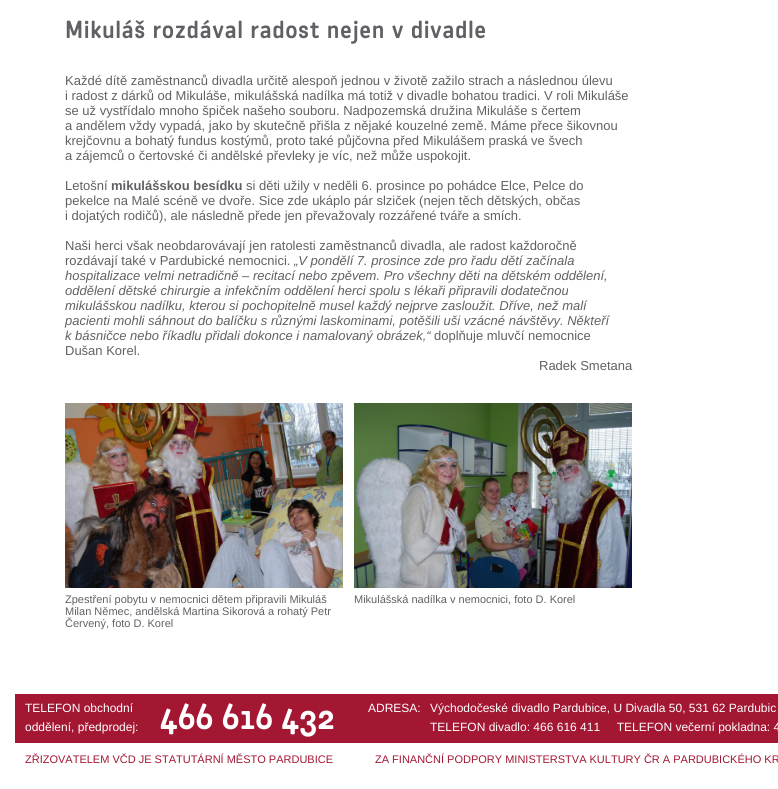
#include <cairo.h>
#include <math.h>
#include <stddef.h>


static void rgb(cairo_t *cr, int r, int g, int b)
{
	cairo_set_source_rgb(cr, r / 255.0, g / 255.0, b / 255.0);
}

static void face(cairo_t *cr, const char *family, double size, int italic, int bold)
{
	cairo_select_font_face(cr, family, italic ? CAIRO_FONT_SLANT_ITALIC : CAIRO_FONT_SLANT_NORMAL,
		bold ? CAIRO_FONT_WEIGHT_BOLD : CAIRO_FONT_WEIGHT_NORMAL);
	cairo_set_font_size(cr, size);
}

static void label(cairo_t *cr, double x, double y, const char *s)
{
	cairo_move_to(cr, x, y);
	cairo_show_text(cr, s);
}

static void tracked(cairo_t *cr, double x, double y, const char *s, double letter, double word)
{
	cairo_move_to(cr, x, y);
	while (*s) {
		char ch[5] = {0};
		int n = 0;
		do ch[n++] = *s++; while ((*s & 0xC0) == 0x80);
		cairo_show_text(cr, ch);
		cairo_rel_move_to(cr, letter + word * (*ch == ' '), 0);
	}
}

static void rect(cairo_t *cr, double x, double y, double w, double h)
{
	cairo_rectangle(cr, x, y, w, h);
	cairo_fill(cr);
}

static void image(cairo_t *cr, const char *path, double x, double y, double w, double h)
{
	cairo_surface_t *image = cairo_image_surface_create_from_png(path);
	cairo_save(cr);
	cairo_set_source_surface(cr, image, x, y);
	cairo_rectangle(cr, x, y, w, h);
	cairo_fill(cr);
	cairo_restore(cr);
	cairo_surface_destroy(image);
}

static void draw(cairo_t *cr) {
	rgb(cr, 255, 255, 255);
	cairo_paint(cr);
	face(cr, "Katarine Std", 24, 0, 1);
	rgb(cr, 96, 97, 100);
	tracked(cr, 65, 38, "Mikuláš rozdával radost nejen v divadle", 1, 0);
	face(cr, "Liberation Sans", 13, 0, 0);
	label(cr, 65, 85, "Každé dítě zaměstnanců divadla určitě alespoň jednou v životě zažilo strach a následnou úlevu");
	label(cr, 65, 100, "i radost z dárků od Mikuláše, mikulášská nadílka má totiž v divadle bohatou tradici. V roli Mikuláše");
	label(cr, 65, 115, "se už vystřídalo mnoho špiček našeho souboru. Nadpozemská družina Mikuláše s čertem");
	label(cr, 65, 130, "a andělem vždy vypadá, jako by skutečně přišla z nějaké kouzelné země. Máme přece šikovnou");
	label(cr, 65, 145, "krejčovnu a bohatý fundus kostýmů, proto také půjčovna před Mikulášem praská ve švech");
	label(cr, 65, 160, "a zájemců o čertovské či andělské převleky je víc, než může uspokojit.");
	label(cr, 65, 190, "Letošní");
	face(cr, "Liberation Sans", 13, 0, 1);
	label(cr, 111, 190, "mikulášskou besídku");
	face(cr, "Liberation Sans", 13, 0, 0);
	label(cr, 246, 190, "si děti užily v neděli 6. prosince po pohádce Elce, Pelce do");
	label(cr, 65, 205, "pekelce na Malé scéně ve dvoře. Sice zde ukáplo pár slziček (nejen těch dětských, občas");
	label(cr, 65, 220, "i dojatých rodičů), ale následně přede jen převažovaly rozzářené tváře a smích.");
	label(cr, 65, 250, "Naši herci však neobdarovávají jen ratolesti zaměstnanců divadla, ale radost každoročně");
	label(cr, 65, 265, "rozdávají také v Pardubické nemocnici.");
	face(cr, "Liberation Sans", 13, 1, 0);
	label(cr, 294, 265, "„V pondělí 7. prosince zde pro řadu dětí začínala");
	label(cr, 65, 280, "hospitalizace velmi netradičně – recitací nebo zpěvem. Pro všechny děti na dětském oddělení,");
	label(cr, 65, 295, "oddělení dětské chirurgie a infekčním oddělení herci spolu s lékaři připravili dodatečnou");
	label(cr, 65, 310, "mikulášskou nadílku, kterou si pochopitelně musel každý nejprve zasloužit. Dříve, než malí");
	label(cr, 65, 325, "pacienti mohli sáhnout do balíčku s různými laskominami, potěšili uši vzácné návštěvy. Někteří");
	label(cr, 65, 340, "k básničce nebo říkadlu přidali dokonce i namalovaný obrázek,“");
	face(cr, "Liberation Sans", 13, 0, 0);
	label(cr, 434, 340, "doplňuje mluvčí nemocnice");
	label(cr, 65, 355, "Dušan Korel.");
	label(cr, 539, 370, "Radek Smetana");
	image(cr, "image0.png", 65, 403, 278, 185);
	face(cr, "Liberation Sans", 11, 0, 0);
	label(cr, 65, 603, "Zpestření pobytu v nemocnici dětem připravili Mikuláš");
	label(cr, 65, 615, "Milan Němec, andělská Martina Sikorová a rohatý Petr");
	label(cr, 65, 627, "Červený, foto D. Korel");
	image(cr, "image1.png", 354, 403, 278, 185);
	label(cr, 354, 603, "Mikulášská nadílka v nemocnici, foto D. Korel");
	rgb(cr, 163, 23, 51);
	rect(cr, 15, 694, 763, 49);
	face(cr, "Liberation Sans", 12, 0, 0);
	rgb(cr, 255, 255, 255);
	label(cr, 25, 712, "TELEFON obchodní");
	label(cr, 25, 731, "oddělení, předprodej:");
	face(cr, "Katarine Std", 35, 0, 1);
	label(cr, 160, 729, "466 616 432");
	face(cr, "Liberation Sans", 12, 0, 0);
	label(cr, 368, 712, "ADRESA:");
	label(cr, 430, 712, "Východočeské divadlo Pardubice, U Divadla 50, 531 62 Pardubic");
	label(cr, 430, 731, "TELEFON divadlo: 466 616 411     TELEFON večerní pokladna: 4");
	face(cr, "Liberation Sans", 11, 0, 0);
	rgb(cr, 163, 23, 51);
	label(cr, 25, 763, "ZŘIZOVATELEM VČD JE STATUTÁRNÍ MĚSTO PARDUBICE");
	label(cr, 375, 763, "ZA FINANČNÍ PODPORY MINISTERSTVA KULTURY ČR A PARDUBICKÉHO KR");
}

int main(void) {
	cairo_surface_t *surface = cairo_image_surface_create(CAIRO_FORMAT_RGB24, 778, 789);
	cairo_t *cr = cairo_create(surface);
	cairo_font_options_t *options = cairo_font_options_create();
	cairo_font_options_set_hint_metrics(options, CAIRO_HINT_METRICS_OFF);
	cairo_font_options_set_hint_style(options, CAIRO_HINT_STYLE_NONE);
	cairo_set_font_options(cr, options);
	cairo_set_miter_limit(cr, 4);
	draw(cr);
	cairo_surface_write_to_png(surface, "render.png");
	cairo_font_options_destroy(options);
	cairo_destroy(cr);
	cairo_surface_destroy(surface);
	return 0;
}
